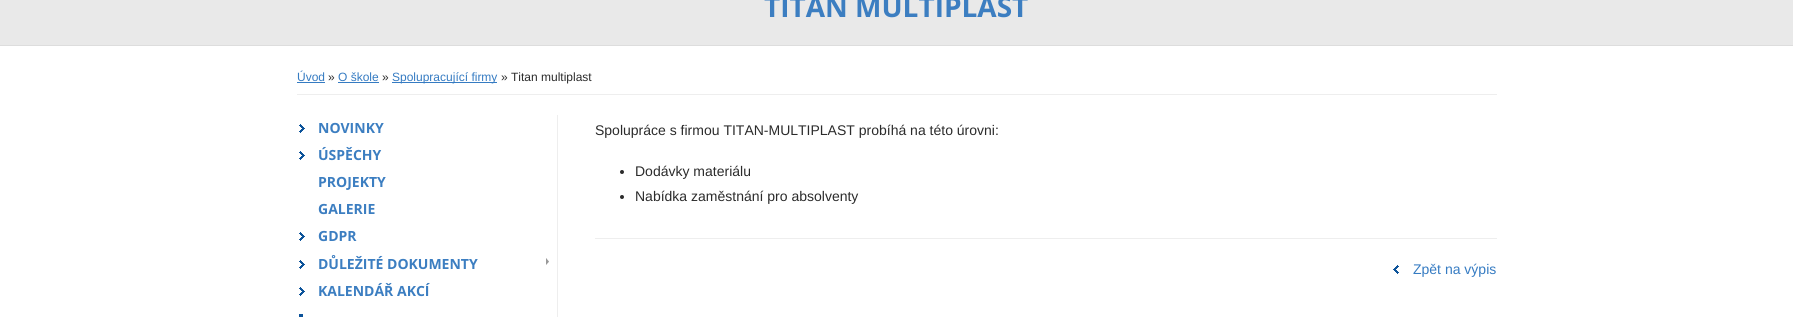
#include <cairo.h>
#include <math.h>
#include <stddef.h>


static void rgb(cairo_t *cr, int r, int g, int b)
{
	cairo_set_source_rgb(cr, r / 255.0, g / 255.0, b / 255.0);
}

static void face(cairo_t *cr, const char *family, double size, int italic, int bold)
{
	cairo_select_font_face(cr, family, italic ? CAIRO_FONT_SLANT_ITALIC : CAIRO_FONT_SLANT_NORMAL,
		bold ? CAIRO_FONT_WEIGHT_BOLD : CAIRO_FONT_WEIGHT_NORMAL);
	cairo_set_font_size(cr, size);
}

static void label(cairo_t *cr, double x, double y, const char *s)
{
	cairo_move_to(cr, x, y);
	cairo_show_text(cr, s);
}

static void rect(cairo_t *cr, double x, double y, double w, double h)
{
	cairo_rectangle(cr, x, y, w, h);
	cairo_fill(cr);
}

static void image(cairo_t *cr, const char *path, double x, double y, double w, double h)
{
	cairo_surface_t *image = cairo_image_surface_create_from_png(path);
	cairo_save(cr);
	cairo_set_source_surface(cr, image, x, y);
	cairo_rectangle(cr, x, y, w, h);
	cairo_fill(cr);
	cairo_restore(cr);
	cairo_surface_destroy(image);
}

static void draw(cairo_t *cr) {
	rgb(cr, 233, 233, 233);
	cairo_paint(cr);
	rgb(cr, 221, 221, 221);
	rect(cr, 0, 45, 1793, 1);
	face(cr, "Open Sans", 28, 0, 1);
	rgb(cr, 60, 126, 193);
	label(cr, 764, 17, "TITAN MULTIPLAST");
	rgb(cr, 255, 255, 255);
	rect(cr, 0, 46, 1793, 271);
	rgb(cr, 238, 238, 238);
	rect(cr, 297, 94, 1200, 1);
	face(cr, "Liberation Sans", 12, 0, 0);
	rgb(cr, 53, 123, 194);
	label(cr, 297, 81, "Úvod");
	rect(cr, 297, 82, 28, 1);
	rgb(cr, 43, 43, 43);
	label(cr, 328, 81, "»");
	rgb(cr, 53, 123, 194);
	label(cr, 338, 81, "O škole");
	rect(cr, 338, 82, 41, 1);
	rgb(cr, 43, 43, 43);
	label(cr, 382, 81, "»");
	rgb(cr, 53, 123, 194);
	rect(cr, 392, 82, 105, 1);
	label(cr, 392, 81, "Spolupracující firmy");
	rgb(cr, 43, 43, 43);
	label(cr, 501, 81, "» Titan multiplast");
	rgb(cr, 238, 238, 238);
	rect(cr, 557, 115, 1, 202);
	image(cr, "image0.png", 299, 124, 6, 9);
	face(cr, "Open Sans", 14, 0, 1);
	rgb(cr, 60, 126, 193);
	label(cr, 318, 133, "NOVINKY");
	image(cr, "image0.png", 299, 151, 6, 9);
	label(cr, 318, 160, "ÚSPĚCHY");
	label(cr, 318, 187, "PROJEKTY");
	label(cr, 318, 214, "GALERIE");
	image(cr, "image0.png", 299, 232, 6, 9);
	label(cr, 318, 241, "GDPR");
	image(cr, "image1.png", 546, 258, 3, 7);
	image(cr, "image0.png", 299, 260, 6, 9);
	label(cr, 318, 269, "DŮLEŽITÉ DOKUMENTY");
	image(cr, "image0.png", 299, 287, 6, 9);
	label(cr, 318, 296, "KALENDÁŘ AKCÍ");
	rgb(cr, 12, 83, 154);
	rect(cr, 299, 314, 4, 3);
	face(cr, "Liberation Sans", 14, 0, 0);
	rgb(cr, 43, 43, 43);
	label(cr, 595, 135, "Spolupráce s firmou TITAN-MULTIPLAST probíhá na této úrovni:");
	cairo_new_path(cr);
	cairo_arc(cr, 622, 172, 2, 0, 2 * M_PI);
	cairo_fill(cr);
	label(cr, 635, 176, "Dodávky materiálu");
	cairo_new_path(cr);
	cairo_arc(cr, 622, 197, 2, 0, 2 * M_PI);
	cairo_fill(cr);
	label(cr, 635, 201, "Nabídka zaměstnání pro absolventy");
	rgb(cr, 238, 238, 238);
	rect(cr, 595, 238, 902, 1);
	image(cr, "image2.png", 1393, 265, 6, 9);
	rgb(cr, 53, 123, 194);
	label(cr, 1413, 274, "Zpět na výpis");
}

int main(void) {
	cairo_surface_t *surface = cairo_image_surface_create(CAIRO_FORMAT_RGB24, 1793, 317);
	cairo_t *cr = cairo_create(surface);
	cairo_font_options_t *options = cairo_font_options_create();
	cairo_font_options_set_hint_metrics(options, CAIRO_HINT_METRICS_OFF);
	cairo_font_options_set_hint_style(options, CAIRO_HINT_STYLE_NONE);
	cairo_set_font_options(cr, options);
	cairo_set_miter_limit(cr, 4);
	draw(cr);
	cairo_surface_write_to_png(surface, "render.png");
	cairo_font_options_destroy(options);
	cairo_destroy(cr);
	cairo_surface_destroy(surface);
	return 0;
}
